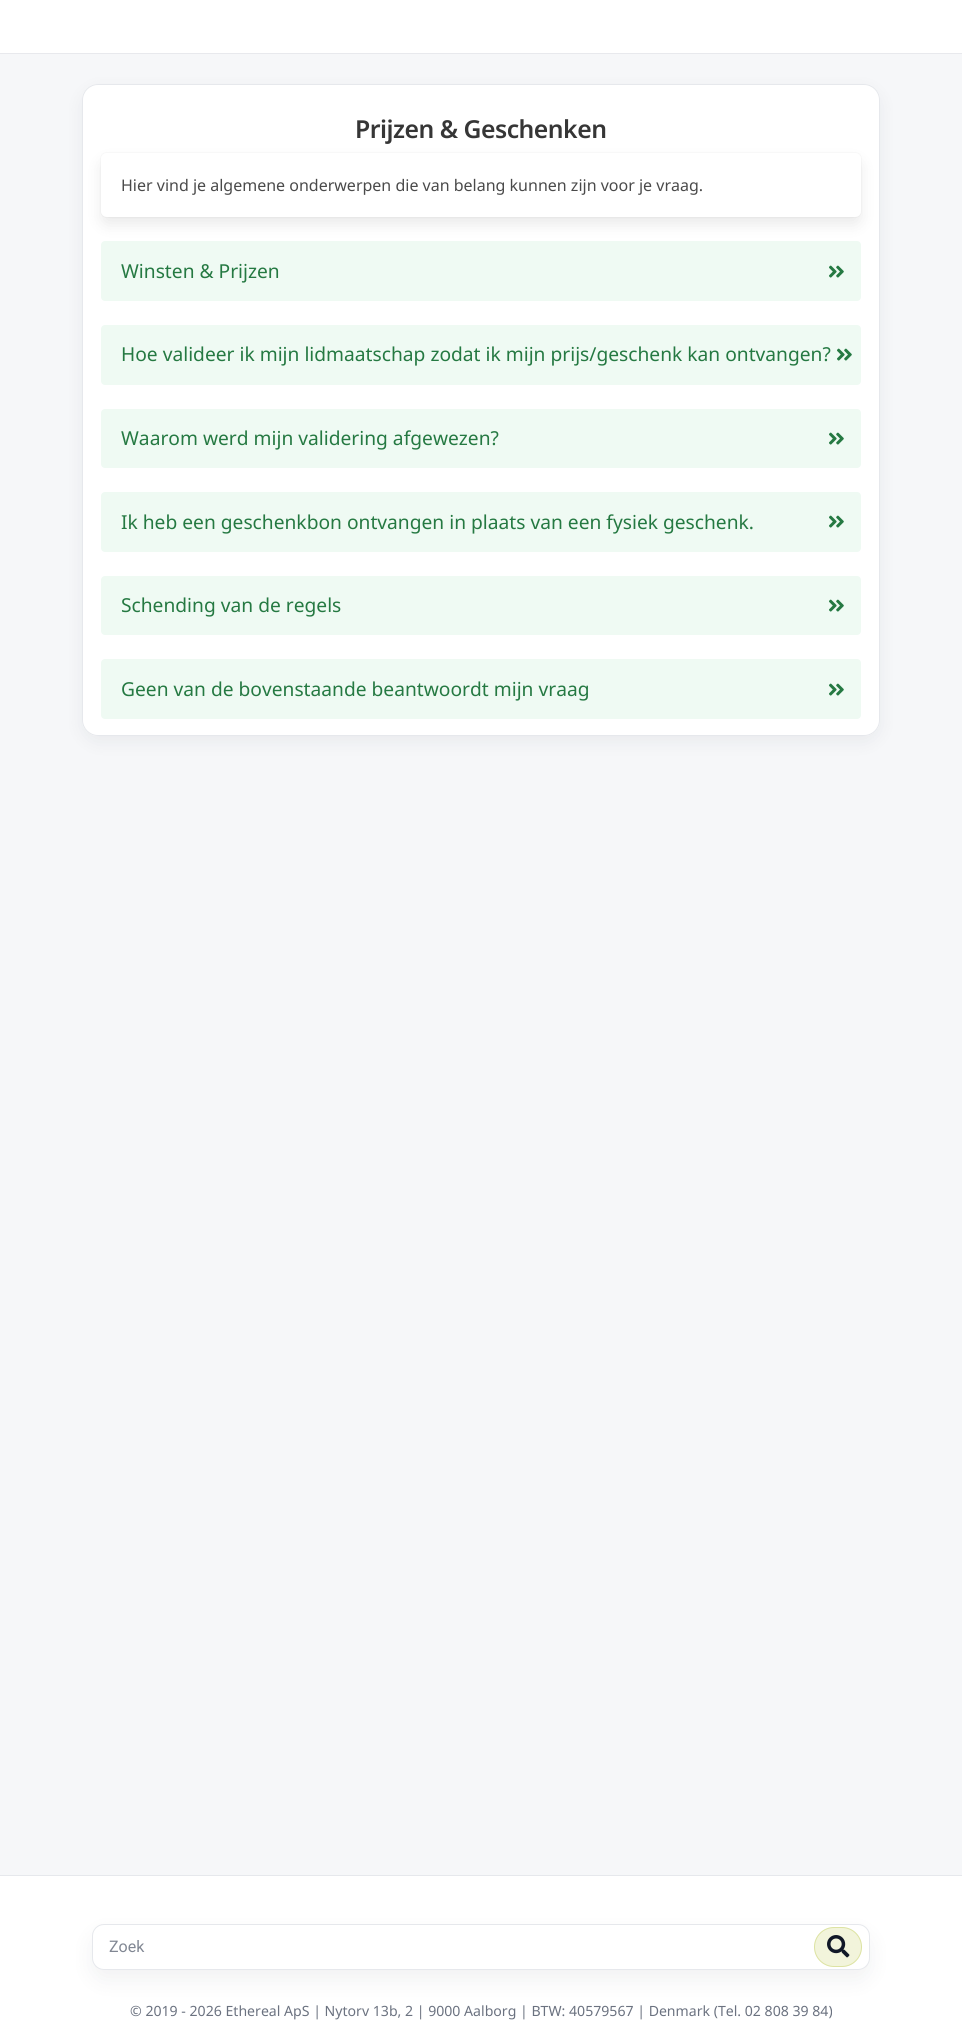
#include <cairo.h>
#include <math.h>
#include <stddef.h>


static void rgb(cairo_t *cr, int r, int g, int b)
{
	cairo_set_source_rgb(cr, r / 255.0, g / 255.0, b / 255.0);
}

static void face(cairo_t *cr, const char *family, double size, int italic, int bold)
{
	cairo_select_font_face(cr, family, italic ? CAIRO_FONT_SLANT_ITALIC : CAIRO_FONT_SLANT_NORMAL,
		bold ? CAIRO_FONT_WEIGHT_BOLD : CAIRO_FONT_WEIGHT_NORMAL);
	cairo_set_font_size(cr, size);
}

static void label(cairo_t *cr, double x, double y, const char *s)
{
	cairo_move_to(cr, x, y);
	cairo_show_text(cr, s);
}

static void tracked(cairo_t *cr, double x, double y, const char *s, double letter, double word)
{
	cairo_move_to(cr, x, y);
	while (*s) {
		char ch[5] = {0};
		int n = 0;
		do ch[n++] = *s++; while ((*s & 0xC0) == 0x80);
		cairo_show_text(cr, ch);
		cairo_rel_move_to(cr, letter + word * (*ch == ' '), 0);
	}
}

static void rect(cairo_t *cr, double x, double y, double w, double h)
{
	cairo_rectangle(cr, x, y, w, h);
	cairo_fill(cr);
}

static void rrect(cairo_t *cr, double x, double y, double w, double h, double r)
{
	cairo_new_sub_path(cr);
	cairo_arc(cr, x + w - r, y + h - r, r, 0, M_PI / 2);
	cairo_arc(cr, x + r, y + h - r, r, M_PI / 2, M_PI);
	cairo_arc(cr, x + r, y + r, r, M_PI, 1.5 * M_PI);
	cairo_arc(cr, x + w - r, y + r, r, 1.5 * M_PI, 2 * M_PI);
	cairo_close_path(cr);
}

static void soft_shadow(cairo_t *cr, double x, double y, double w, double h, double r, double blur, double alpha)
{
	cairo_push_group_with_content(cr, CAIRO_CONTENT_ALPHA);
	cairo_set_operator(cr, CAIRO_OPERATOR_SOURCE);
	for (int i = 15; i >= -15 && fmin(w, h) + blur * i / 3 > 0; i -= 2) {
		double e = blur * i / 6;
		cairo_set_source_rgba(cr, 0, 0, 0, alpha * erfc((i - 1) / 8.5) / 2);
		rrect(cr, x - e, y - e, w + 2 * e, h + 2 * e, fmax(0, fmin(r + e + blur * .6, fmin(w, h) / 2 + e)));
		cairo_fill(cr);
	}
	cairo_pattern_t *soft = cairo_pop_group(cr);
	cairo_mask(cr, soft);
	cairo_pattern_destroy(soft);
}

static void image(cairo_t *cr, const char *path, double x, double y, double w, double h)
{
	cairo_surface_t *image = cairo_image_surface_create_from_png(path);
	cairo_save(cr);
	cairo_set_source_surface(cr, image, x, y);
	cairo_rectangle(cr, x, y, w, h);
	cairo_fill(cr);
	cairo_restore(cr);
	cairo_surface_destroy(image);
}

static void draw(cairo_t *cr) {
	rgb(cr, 255, 255, 255);
	cairo_paint(cr);
	rgb(cr, 232, 233, 237);
	rect(cr, 0, 53, 962, 1);
	rgb(cr, 246, 247, 249);
	rect(cr, 0, 54, 962, 1821);
	rgb(cr, 17, 24, 39);
	soft_shadow(cr, 82, 90, 798, 652, 16, 9, 0.06);
	rgb(cr, 255, 255, 255);
	rrect(cr, 82, 84, 798, 652, 16);
	cairo_fill(cr);
	rrect(cr, 82.5, 84.5, 797, 651, 15.5);
	cairo_set_source_rgba(cr, 0.898, 0.906, 0.922, 0.95);
	cairo_set_line_width(cr, 1);
	cairo_stroke(cr);
	rrect(cr, 100.5, 152.5, 761, 65, 6.5);
	rgb(cr, 250, 250, 250);
	cairo_stroke(cr);
	rgb(cr, 10, 10, 10);
	soft_shadow(cr, 103, 163, 756, 60, 4, 8, 0.1);
	face(cr, "Noto Sans SemiBold", 24.75, 0, 0);
	rgb(cr, 54, 54, 54);
	tracked(cr, 355, 138, "Prijzen & Geschenken", -0.5, 0);
	rgb(cr, 255, 255, 255);
	rrect(cr, 101, 153, 760, 64, 6);
	cairo_fill(cr);
	face(cr, "Noto Sans", 16, 0, 0);
	rgb(cr, 74, 74, 74);
	label(cr, 121, 191, "Hier vind je algemene onderwerpen die van belang kunnen zijn voor je vraag.");
	rgb(cr, 239, 250, 243);
	rrect(cr, 101, 241, 760, 60, 4);
	cairo_fill(cr);
	face(cr, "Noto Sans", 19.2, 0, 0);
	rgb(cr, 37, 121, 66);
	label(cr, 121, 278, "Winsten & Prijzen");
	image(cr, "image0.png", 829, 265, 15, 13);
	rgb(cr, 239, 250, 243);
	rrect(cr, 101, 325, 760, 60, 4);
	cairo_fill(cr);
	rgb(cr, 37, 121, 66);
	label(cr, 121, 361, "Hoe valideer ik mijn lidmaatschap zodat ik mijn prijs/geschenk kan ontvangen?");
	image(cr, "image0.png", 837, 348, 15, 13);
	rgb(cr, 239, 250, 243);
	rrect(cr, 101, 409, 760, 59, 4);
	cairo_fill(cr);
	rgb(cr, 37, 121, 66);
	label(cr, 121, 445, "Waarom werd mijn validering afgewezen?");
	image(cr, "image0.png", 829, 432, 15, 13);
	rgb(cr, 239, 250, 243);
	rrect(cr, 101, 492, 760, 60, 4);
	cairo_fill(cr);
	rgb(cr, 37, 121, 66);
	label(cr, 121, 529, "Ik heb een geschenkbon ontvangen in plaats van een fysiek geschenk.");
	image(cr, "image0.png", 829, 515, 15, 13);
	rgb(cr, 239, 250, 243);
	rrect(cr, 101, 576, 760, 59, 4);
	cairo_fill(cr);
	rgb(cr, 37, 121, 66);
	label(cr, 121, 612, "Schending van de regels");
	image(cr, "image0.png", 829, 599, 15, 13);
	rgb(cr, 239, 250, 243);
	rrect(cr, 101, 659, 760, 60, 4);
	cairo_fill(cr);
	rgb(cr, 37, 121, 66);
	label(cr, 121, 696, "Geen van de bovenstaande beantwoordt mijn vraag");
	image(cr, "image0.png", 829, 683, 15, 13);
	rgb(cr, 230, 232, 236);
	rect(cr, 0, 1875, 962, 1);
	rgb(cr, 17, 24, 39);
	soft_shadow(cr, 92, 1934, 778, 46, 12, 11, 0.06);
	rgb(cr, 255, 255, 255);
	rrect(cr, 92.5, 1924.5, 777, 45, 11.5);
	cairo_fill_preserve(cr);
	rgb(cr, 230, 232, 236);
	cairo_stroke(cr);
	face(cr, "Roboto", 16, 0, 0);
	rgb(cr, 129, 135, 147);
	label(cr, 109, 1952, "Zoek");
	rgb(cr, 242, 244, 219);
	rrect(cr, 814, 1927, 48, 40, 20);
	cairo_fill(cr);
	rrect(cr, 814.5, 1927.5, 47, 39, 19.5);
	cairo_set_source_rgba(cr, 0.71, 0.761, 0.224, 0.35);
	cairo_stroke(cr);
	image(cr, "image1.png", 827, 1935, 23, 23);
	face(cr, "Noto Sans", 14.1, 0, 0);
	rgb(cr, 107, 114, 128);
	label(cr, 130, 2016, "© 2019 - 2026 Ethereal ApS | Nytorv 13b, 2 | 9000 Aalborg | BTW: 40579567 | Denmark (Tel. 02 808 39 84)");
}

int main(void) {
	cairo_surface_t *surface = cairo_image_surface_create(CAIRO_FORMAT_RGB24, 962, 2039);
	cairo_t *cr = cairo_create(surface);
	cairo_font_options_t *options = cairo_font_options_create();
	cairo_font_options_set_hint_metrics(options, CAIRO_HINT_METRICS_OFF);
	cairo_font_options_set_hint_style(options, CAIRO_HINT_STYLE_NONE);
	cairo_set_font_options(cr, options);
	cairo_set_miter_limit(cr, 4);
	draw(cr);
	cairo_surface_write_to_png(surface, "render.png");
	cairo_font_options_destroy(options);
	cairo_destroy(cr);
	cairo_surface_destroy(surface);
	return 0;
}
